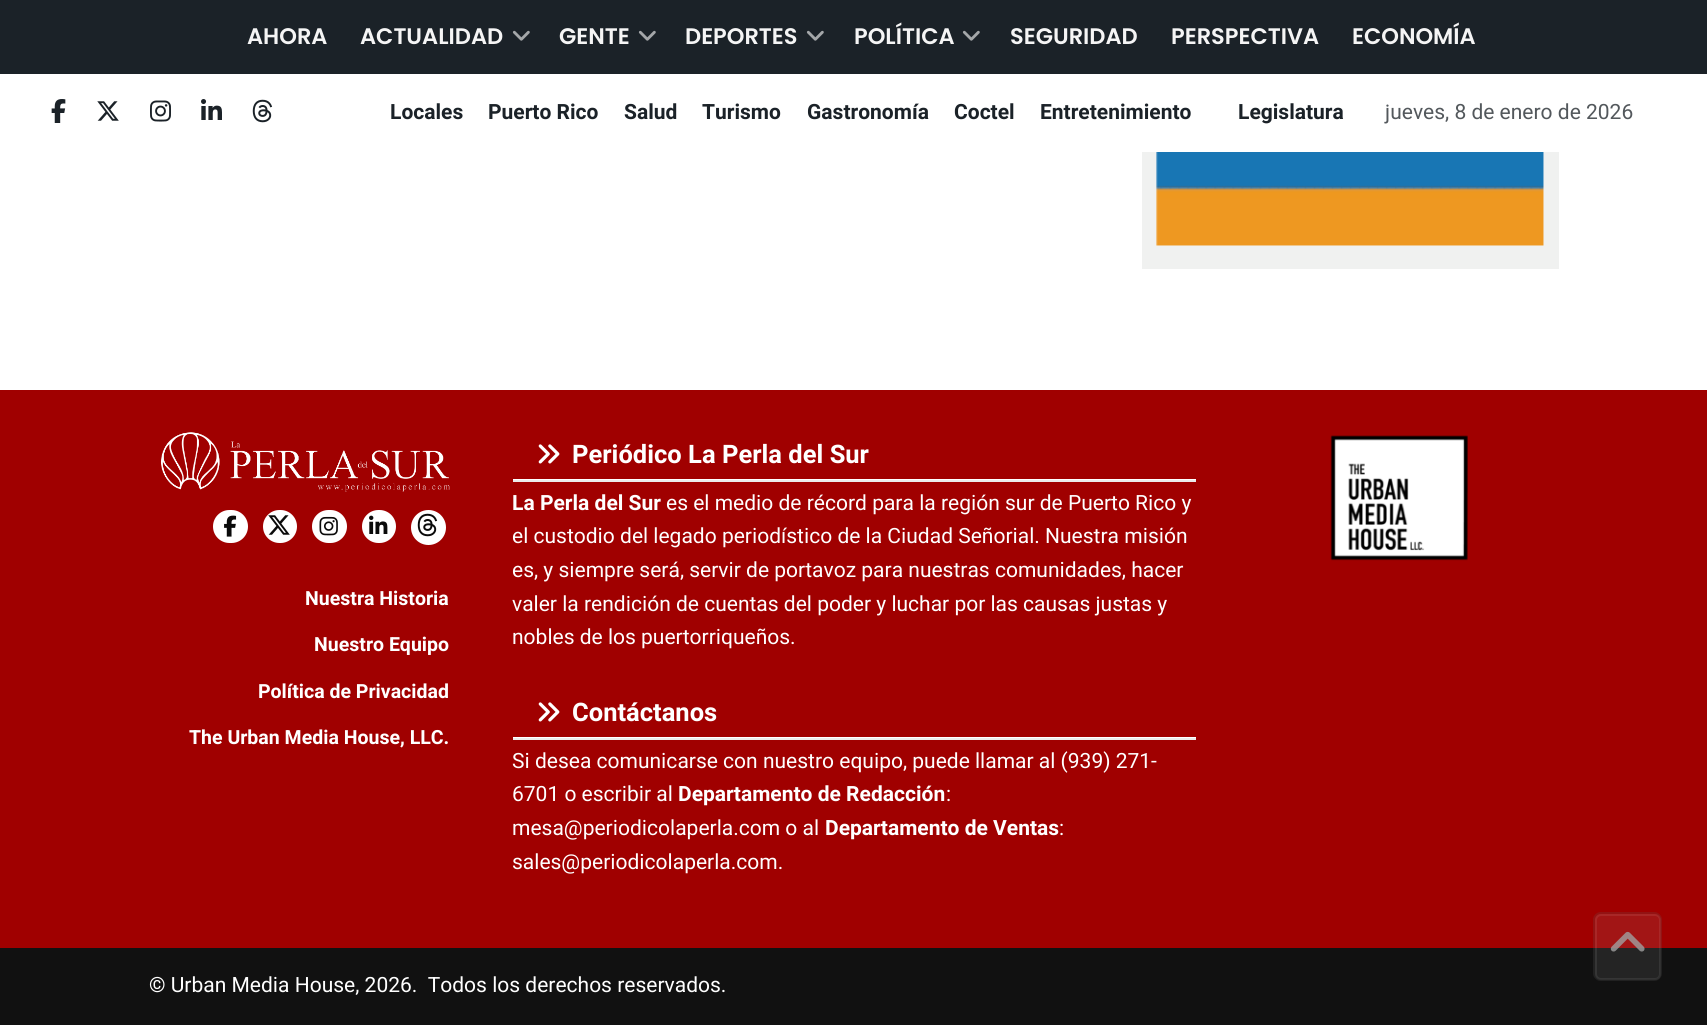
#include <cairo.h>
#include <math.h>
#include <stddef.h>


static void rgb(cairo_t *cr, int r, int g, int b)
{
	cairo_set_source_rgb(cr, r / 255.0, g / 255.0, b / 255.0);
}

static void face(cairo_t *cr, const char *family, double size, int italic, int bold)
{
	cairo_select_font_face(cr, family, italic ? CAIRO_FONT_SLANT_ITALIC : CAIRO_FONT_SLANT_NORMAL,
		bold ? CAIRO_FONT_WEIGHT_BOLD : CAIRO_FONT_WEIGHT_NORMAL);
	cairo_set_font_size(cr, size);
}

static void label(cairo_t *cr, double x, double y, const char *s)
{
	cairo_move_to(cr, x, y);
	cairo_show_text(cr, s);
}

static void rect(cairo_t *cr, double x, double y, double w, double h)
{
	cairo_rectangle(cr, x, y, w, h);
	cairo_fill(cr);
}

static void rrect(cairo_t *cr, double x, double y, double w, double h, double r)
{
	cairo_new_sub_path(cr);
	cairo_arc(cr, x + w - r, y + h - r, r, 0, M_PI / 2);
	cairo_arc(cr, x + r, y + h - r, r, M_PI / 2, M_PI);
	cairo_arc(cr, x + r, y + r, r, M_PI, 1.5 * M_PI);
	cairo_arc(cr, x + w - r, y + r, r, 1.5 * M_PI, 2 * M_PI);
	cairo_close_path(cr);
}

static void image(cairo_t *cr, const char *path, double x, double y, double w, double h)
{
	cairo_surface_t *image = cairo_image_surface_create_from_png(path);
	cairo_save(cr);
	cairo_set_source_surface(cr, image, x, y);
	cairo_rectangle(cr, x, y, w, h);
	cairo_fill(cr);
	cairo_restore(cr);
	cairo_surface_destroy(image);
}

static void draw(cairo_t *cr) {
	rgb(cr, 255, 255, 255);
	cairo_paint(cr);
	rgb(cr, 27, 34, 40);
	rect(cr, 0, 0, 1707, 74);
	face(cr, "Poppins SemiBold", 22.5, 0, 0);
	rgb(cr, 245, 245, 245);
	label(cr, 247, 44, "AHORA");
	label(cr, 360, 44, "ACTUALIDAD");
	image(cr, "image0.png", 512, 30, 18, 11);
	label(cr, 559, 44, "GENTE");
	image(cr, "image0.png", 638, 30, 18, 11);
	label(cr, 685, 44, "DEPORTES");
	image(cr, "image0.png", 806, 30, 18, 11);
	label(cr, 854, 44, "POLÍTICA");
	image(cr, "image0.png", 962, 30, 18, 11);
	label(cr, 1010, 44, "SEGURIDAD");
	label(cr, 1171, 44, "PERSPECTIVA");
	label(cr, 1352, 44, "ECONOMÍA");
	image(cr, "image1.png", 51, 99, 15, 24);
	image(cr, "image2.png", 97, 101, 22, 20);
	image(cr, "image3.png", 150, 100, 21, 22);
	image(cr, "image4.png", 201, 99, 21, 21);
	image(cr, "image5.png", 252, 99, 21, 24);
	face(cr, "Heebo", 21, 0, 1);
	rgb(cr, 27, 34, 40);
	label(cr, 390, 119, "Locales");
	label(cr, 488, 119, "Puerto Rico");
	label(cr, 624, 119, "Salud");
	label(cr, 702, 119, "Turismo");
	label(cr, 807, 119, "Gastronomía");
	label(cr, 954, 119, "Coctel");
	label(cr, 1040, 119, "Entretenimiento");
	label(cr, 1238, 119, "Legislatura");
	face(cr, "Heebo", 21, 0, 0);
	rgb(cr, 83, 88, 92);
	label(cr, 1385, 119, "jueves, 8 de enero de 2026");
	rgb(cr, 240, 241, 240);
	rect(cr, 1142, 152, 417, 117);
	image(cr, "image6.png", 1156, 152, 388, 94);
	rgb(cr, 160, 0, 0);
	rect(cr, 0, 390, 1707, 558);
	image(cr, "image7.png", 160, 432, 290, 60);
	rgb(cr, 255, 255, 255);
	rrect(cr, 213, 510, 35, 33, 16.5);
	cairo_fill(cr);
	image(cr, "image8.png", 224, 515, 13, 22);
	rrect(cr, 263, 510, 34, 33, 16.5);
	cairo_fill(cr);
	image(cr, "image9.png", 268, 515, 22, 20);
	rrect(cr, 312, 510, 35, 33, 16.5);
	cairo_fill(cr);
	image(cr, "image10.png", 319, 516, 19, 20);
	rrect(cr, 362, 510, 34, 33, 16.5);
	cairo_fill(cr);
	image(cr, "image11.png", 369, 515, 19, 19);
	cairo_arc(cr, 428.5, 527.5, 17.5, 0, 2 * M_PI);
	cairo_fill(cr);
	image(cr, "image12.png", 417, 513, 21, 24);
	face(cr, "Heebo", 19.5, 0, 1);
	label(cr, 305, 605, "Nuestra Historia");
	label(cr, 314, 651, "Nuestro Equipo");
	label(cr, 258, 698, "Política de Privacidad");
	label(cr, 189, 744, "The Urban Media House, LLC.");
	rect(cr, 513, 479, 683, 1);
	image(cr, "image13.png", 538, 444, 22, 20);
	face(cr, "Heebo", 25.5, 0, 1);
	label(cr, 572, 463, "Periódico La Perla del Sur");
	rgb(cr, 235, 235, 235);
	rect(cr, 513, 480, 683, 2);
	face(cr, "Heebo", 21, 0, 1);
	rgb(cr, 255, 255, 255);
	label(cr, 512, 510, "La Perla del Sur");
	face(cr, "Heebo", 21, 0, 0);
	label(cr, 666, 510, "es el medio de récord para la región sur de Puerto Rico y");
	label(cr, 512, 543, "el custodio del legado periodístico de la Ciudad Señorial. Nuestra misión");
	label(cr, 512, 577, "es, y siempre será, servir de portavoz para nuestras comunidades, hacer");
	label(cr, 512, 611, "valer la rendición de cuentas del poder y luchar por las causas justas y");
	label(cr, 512, 644, "nobles de los puertorriqueños.");
	rect(cr, 513, 737, 683, 1);
	image(cr, "image13.png", 538, 702, 22, 20);
	face(cr, "Heebo", 25.5, 0, 1);
	label(cr, 572, 721, "Contáctanos");
	rgb(cr, 235, 235, 235);
	rect(cr, 513, 738, 683, 2);
	face(cr, "Heebo", 21, 0, 0);
	rgb(cr, 255, 255, 255);
	label(cr, 512, 768, "Si desea comunicarse con nuestro equipo, puede llamar al (939) 271-");
	label(cr, 512, 801, "6701 o escribir al");
	face(cr, "Heebo", 21, 0, 1);
	label(cr, 678, 801, "Departamento de Redacción");
	face(cr, "Heebo", 21, 0, 0);
	label(cr, 946, 801, ":");
	label(cr, 512, 835, "mesa@periodicolaperla.com o al");
	face(cr, "Heebo", 21, 0, 1);
	label(cr, 825, 835, "Departamento de Ventas");
	face(cr, "Heebo", 21, 0, 0);
	label(cr, 1059, 835, ":");
	label(cr, 512, 869, "sales@periodicolaperla.com.");
	image(cr, "image14.png", 1330, 435, 138, 126);
	rgb(cr, 17, 17, 17);
	rect(cr, 0, 948, 1707, 77);
	rgb(cr, 255, 255, 255);
	label(cr, 149, 992, "© Urban Media House, 2026.  Todos los derechos reservados.");
	cairo_set_source_rgba(cr, 0.71, 0.71, 0.71, 0.12);
	rrect(cr, 1593, 912, 69, 69, 8);
	cairo_fill(cr);
	rrect(cr, 1596, 915, 64, 64, 5);
	cairo_set_source_rgba(cr, 1, 1, 1, 0.08);
	cairo_stroke(cr);
	rrect(cr, 1594, 913, 67, 67, 7);
	cairo_set_source_rgba(cr, 0, 0, 0, 0.09);
	cairo_stroke(cr);
	image(cr, "image15.png", 1610, 931, 35, 21);
}

int main(void) {
	cairo_surface_t *surface = cairo_image_surface_create(CAIRO_FORMAT_RGB24, 1707, 1025);
	cairo_t *cr = cairo_create(surface);
	cairo_font_options_t *options = cairo_font_options_create();
	cairo_font_options_set_hint_metrics(options, CAIRO_HINT_METRICS_OFF);
	cairo_font_options_set_hint_style(options, CAIRO_HINT_STYLE_NONE);
	cairo_set_font_options(cr, options);
	cairo_set_miter_limit(cr, 4);
	draw(cr);
	cairo_surface_write_to_png(surface, "render.png");
	cairo_font_options_destroy(options);
	cairo_destroy(cr);
	cairo_surface_destroy(surface);
	return 0;
}
